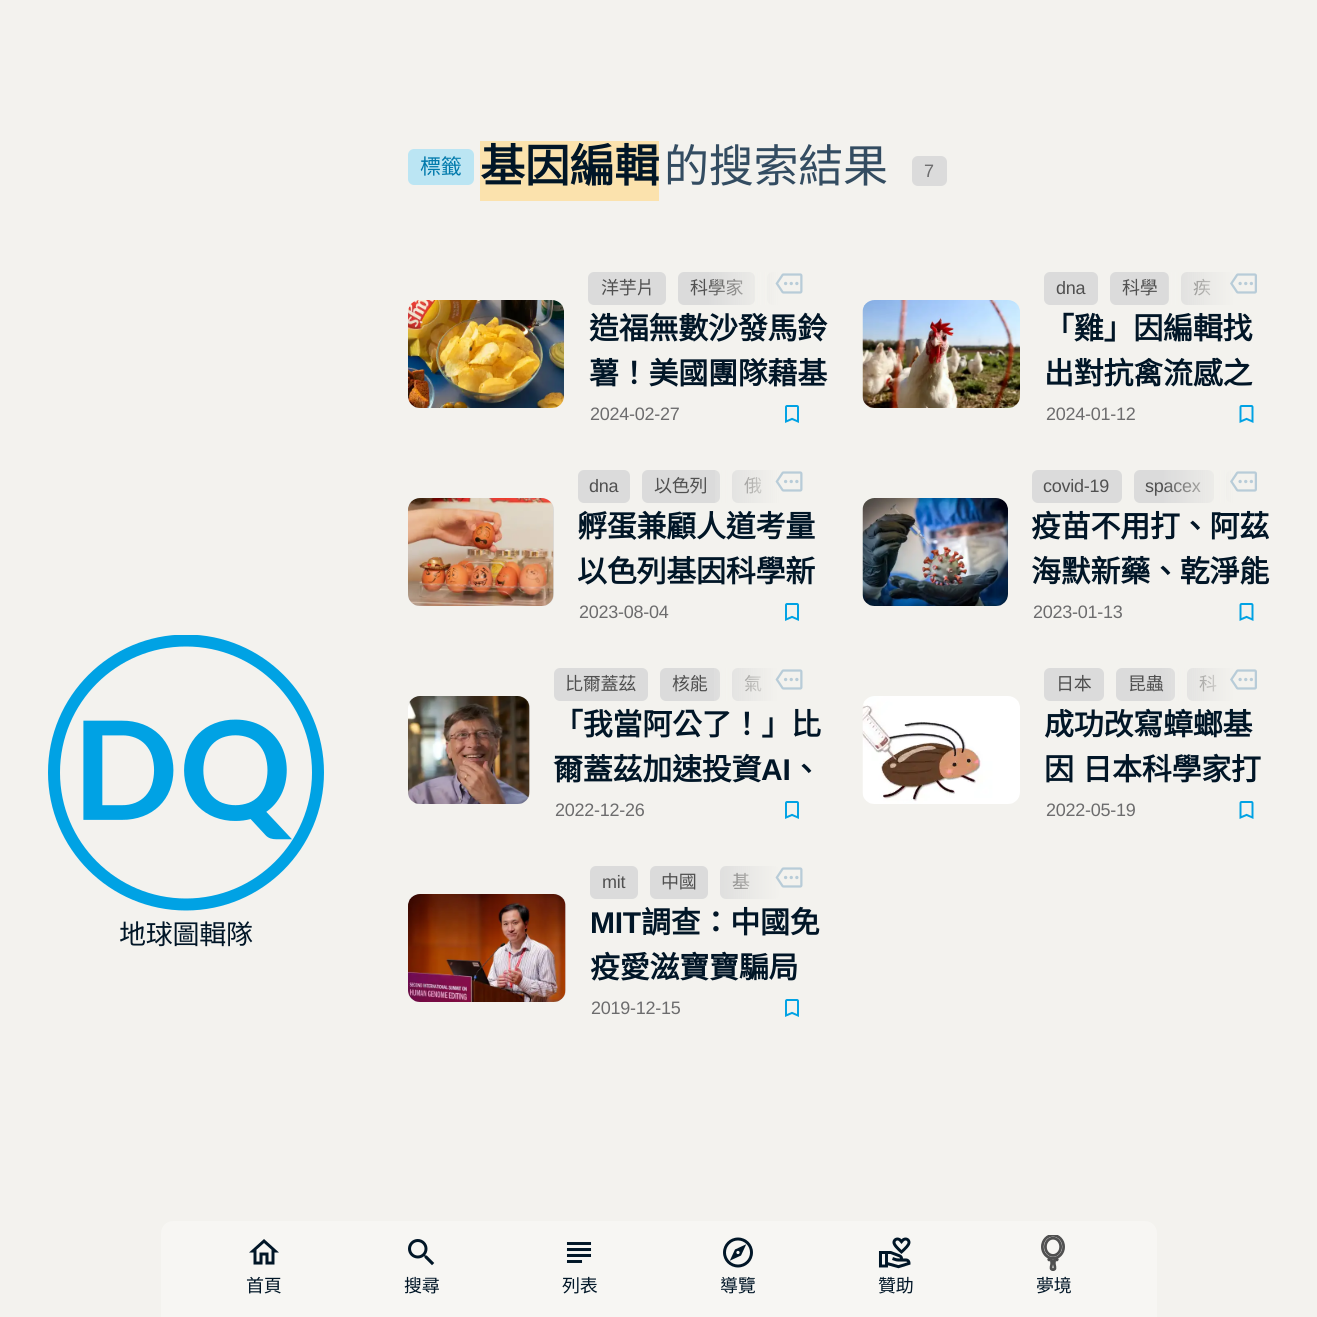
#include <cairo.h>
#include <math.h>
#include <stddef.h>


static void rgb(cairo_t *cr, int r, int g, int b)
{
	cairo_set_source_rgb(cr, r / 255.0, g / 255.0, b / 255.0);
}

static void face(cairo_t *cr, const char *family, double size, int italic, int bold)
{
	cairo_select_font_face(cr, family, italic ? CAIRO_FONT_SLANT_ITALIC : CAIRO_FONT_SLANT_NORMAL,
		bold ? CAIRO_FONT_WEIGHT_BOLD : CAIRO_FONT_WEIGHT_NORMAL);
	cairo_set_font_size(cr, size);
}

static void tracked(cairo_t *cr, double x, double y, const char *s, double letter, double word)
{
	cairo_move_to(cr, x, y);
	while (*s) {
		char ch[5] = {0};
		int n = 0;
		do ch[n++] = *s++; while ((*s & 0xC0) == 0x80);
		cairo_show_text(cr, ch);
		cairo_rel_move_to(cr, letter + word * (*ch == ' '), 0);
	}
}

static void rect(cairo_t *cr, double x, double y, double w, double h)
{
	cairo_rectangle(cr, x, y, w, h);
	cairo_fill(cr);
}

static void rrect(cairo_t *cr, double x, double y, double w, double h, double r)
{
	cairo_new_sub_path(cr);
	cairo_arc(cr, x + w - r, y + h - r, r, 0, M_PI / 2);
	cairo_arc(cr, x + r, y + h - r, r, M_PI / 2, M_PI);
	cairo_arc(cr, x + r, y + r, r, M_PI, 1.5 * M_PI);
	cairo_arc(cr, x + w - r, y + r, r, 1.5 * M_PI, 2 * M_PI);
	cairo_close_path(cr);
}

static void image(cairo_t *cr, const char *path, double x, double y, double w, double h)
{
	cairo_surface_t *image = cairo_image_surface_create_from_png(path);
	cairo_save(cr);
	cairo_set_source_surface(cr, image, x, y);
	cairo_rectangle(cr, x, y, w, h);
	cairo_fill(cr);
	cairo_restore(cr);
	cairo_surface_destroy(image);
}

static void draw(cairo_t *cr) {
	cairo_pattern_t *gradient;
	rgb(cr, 243, 242, 238);
	cairo_paint(cr);
	image(cr, "image0.png", 48, 635, 276, 276);
	face(cr, "Noto Sans CJK TC", 27, 0, 0);
	rgb(cr, 1, 22, 39);
	tracked(cr, 119, 944, "地球圖輯隊", -0.25, 0);
	rgb(cr, 187, 229, 243);
	rrect(cr, 408, 149, 66, 36, 6);
	cairo_fill(cr);
	face(cr, "Noto Sans CJK TC", 21, 0, 0);
	rgb(cr, 0, 121, 171);
	tracked(cr, 420, 174, "標籤", -0.25, 0);
	rgb(cr, 251, 226, 173);
	rect(cr, 480, 141, 179, 60);
	face(cr, "Noto Sans CJK TC", 45, 0, 1);
	rgb(cr, 1, 22, 39);
	tracked(cr, 480, 182, "基因編輯", -0.25, 0);
	face(cr, "Noto Sans CJK TC", 45, 0, 0);
	rgb(cr, 51, 76, 97);
	tracked(cr, 664, 182, "的搜索結果", -0.25, 0);
	rgb(cr, 219, 219, 219);
	rrect(cr, 912, 156, 35, 30, 6);
	cairo_fill(cr);
	face(cr, "Liberation Sans", 18, 0, 0);
	rgb(cr, 108, 108, 109);
	tracked(cr, 924, 177, "7", -0.25, 0);
	image(cr, "image1.png", 408, 300, 156, 108);
	rgb(cr, 219, 219, 219);
	rrect(cr, 767, 272, 60, 33, 6);
	cairo_fill(cr);
	rrect(cr, 678, 272, 77, 33, 6);
	cairo_fill(cr);
	face(cr, "Noto Sans CJK TC", 18, 0, 0);
	rgb(cr, 80, 80, 80);
	tracked(cr, 690, 294, "科學家", -0.25, 0);
	gradient = cairo_pattern_create_linear(827, 290, 588, 290);
	cairo_pattern_add_color_stop_rgba(gradient, 0.2, 0.953, 0.949, 0.933, 1);
	cairo_pattern_add_color_stop_rgba(gradient, 0.5, 0.953, 0.949, 0.933, 0);
	cairo_set_source(cr, gradient);
	cairo_pattern_destroy(gradient);
	rect(cr, 709, 272, 118, 33);
	rgb(cr, 219, 219, 219);
	rrect(cr, 588, 272, 78, 33, 6);
	cairo_fill(cr);
	rgb(cr, 80, 80, 80);
	tracked(cr, 601, 294, "洋芋片", -0.25, 0);
	image(cr, "image2.png", 775, 273, 28, 21);
	face(cr, "Noto Sans CJK TC", 30, 0, 1);
	rgb(cr, 1, 22, 39);
	tracked(cr, 589, 339, "造福無數沙發馬鈴", -0.25, 0);
	tracked(cr, 589, 384, "薯！美國團隊藉基", -0.25, 0);
	face(cr, "Liberation Sans", 18, 0, 0);
	rgb(cr, 108, 108, 109);
	tracked(cr, 590, 420, "2024-02-27", -0.25, 0);
	image(cr, "image3.png", 785, 405, 14, 18);
	image(cr, "image4.png", 862, 300, 158, 108);
	rgb(cr, 219, 219, 219);
	rrect(cr, 1110, 272, 59, 33, 6);
	cairo_fill(cr);
	face(cr, "Noto Sans CJK TC", 18, 0, 0);
	rgb(cr, 80, 80, 80);
	tracked(cr, 1122, 294, "科學", -0.25, 0);
	rgb(cr, 219, 219, 219);
	rrect(cr, 1181, 272, 60, 33, 6);
	cairo_fill(cr);
	rgb(cr, 80, 80, 80);
	tracked(cr, 1193, 294, "疾", -0.25, 0);
	gradient = cairo_pattern_create_linear(1281, 290, 1044, 290);
	cairo_pattern_add_color_stop_rgba(gradient, 0.2, 0.953, 0.949, 0.933, 1);
	cairo_pattern_add_color_stop_rgba(gradient, 0.51, 0.953, 0.949, 0.933, 0);
	cairo_set_source(cr, gradient);
	cairo_pattern_destroy(gradient);
	rect(cr, 1168, 272, 73, 33);
	image(cr, "image5.png", 1230, 273, 27, 21);
	rgb(cr, 219, 219, 219);
	rrect(cr, 1044, 272, 54, 33, 6);
	cairo_fill(cr);
	face(cr, "Liberation Sans", 18, 0, 0);
	rgb(cr, 80, 80, 80);
	tracked(cr, 1056, 294, "dna", -0.25, 0);
	face(cr, "Noto Sans CJK TC", 30, 0, 1);
	rgb(cr, 1, 22, 39);
	tracked(cr, 1044, 339, "「雞」因編輯找", -0.25, 0);
	tracked(cr, 1044, 384, "出對抗禽流感之", -0.25, 0);
	face(cr, "Liberation Sans", 18, 0, 0);
	rgb(cr, 108, 108, 109);
	tracked(cr, 1046, 420, "2024-01-12", -0.25, 0);
	image(cr, "image6.png", 1239, 405, 15, 18);
	rgb(cr, 219, 219, 219);
	rrect(cr, 408, 498, 146, 108, 12);
	cairo_fill(cr);
	image(cr, "image7.png", 408, 498, 146, 108);
	rrect(cr, 642, 470, 78, 33, 6);
	cairo_fill(cr);
	rrect(cr, 732, 470, 95, 33, 6);
	cairo_fill(cr);
	face(cr, "Noto Sans CJK TC", 18, 0, 0);
	rgb(cr, 80, 80, 80);
	tracked(cr, 744, 492, "俄", -0.25, 0);
	gradient = cairo_pattern_create_linear(827, 488, 578, 488);
	cairo_pattern_add_color_stop_rgba(gradient, 0.19, 0.953, 0.949, 0.933, 1);
	cairo_pattern_add_color_stop_rgba(gradient, 0.48, 0.953, 0.949, 0.933, 0);
	cairo_set_source(cr, gradient);
	cairo_pattern_destroy(gradient);
	rect(cr, 715, 470, 112, 33);
	rgb(cr, 219, 219, 219);
	rrect(cr, 578, 470, 52, 33, 6);
	cairo_fill(cr);
	face(cr, "Liberation Sans", 18, 0, 0);
	rgb(cr, 80, 80, 80);
	tracked(cr, 589, 492, "dna", -0.25, 0);
	face(cr, "Noto Sans CJK TC", 18, 0, 0);
	tracked(cr, 654, 492, "以色列", -0.25, 0);
	image(cr, "image8.png", 775, 471, 28, 21);
	face(cr, "Noto Sans CJK TC", 30, 0, 1);
	rgb(cr, 1, 22, 39);
	tracked(cr, 577, 537, "孵蛋兼顧人道考量", -0.25, 0);
	tracked(cr, 577, 582, "以色列基因科學新", -0.25, 0);
	face(cr, "Liberation Sans", 18, 0, 0);
	rgb(cr, 108, 108, 109);
	tracked(cr, 579, 618, "2023-08-04", -0.25, 0);
	image(cr, "image3.png", 785, 603, 14, 18);
	image(cr, "image9.png", 862, 498, 146, 108);
	rgb(cr, 219, 219, 219);
	rrect(cr, 1226, 470, 55, 33, 6);
	cairo_fill(cr);
	rrect(cr, 1134, 470, 80, 33, 6);
	cairo_fill(cr);
	rgb(cr, 80, 80, 80);
	tracked(cr, 1145, 492, "spacex", -0.25, 0);
	gradient = cairo_pattern_create_linear(1281, 488, 1032, 488);
	cairo_pattern_add_color_stop_rgba(gradient, 0.19, 0.953, 0.949, 0.933, 1);
	cairo_pattern_add_color_stop_rgba(gradient, 0.48, 0.953, 0.949, 0.933, 0);
	cairo_set_source(cr, gradient);
	cairo_pattern_destroy(gradient);
	rect(cr, 1164, 470, 117, 33);
	rgb(cr, 219, 219, 219);
	rrect(cr, 1032, 470, 90, 33, 6);
	cairo_fill(cr);
	rgb(cr, 80, 80, 80);
	tracked(cr, 1043, 492, "covid-19", -0.25, 0);
	image(cr, "image10.png", 1230, 471, 27, 21);
	face(cr, "Noto Sans CJK TC", 30, 0, 1);
	rgb(cr, 1, 22, 39);
	tracked(cr, 1031, 537, "疫苗不用打、阿茲", -0.25, 0);
	tracked(cr, 1031, 582, "海默新藥、乾淨能", -0.25, 0);
	face(cr, "Liberation Sans", 18, 0, 0);
	rgb(cr, 108, 108, 109);
	tracked(cr, 1033, 618, "2023-01-13", -0.25, 0);
	image(cr, "image6.png", 1239, 603, 15, 18);
	rgb(cr, 219, 219, 219);
	rrect(cr, 408, 696, 122, 108, 12);
	cairo_fill(cr);
	image(cr, "image11.png", 408, 696, 122, 108);
	rrect(cr, 660, 668, 60, 33, 6);
	cairo_fill(cr);
	rrect(cr, 732, 668, 95, 33, 6);
	cairo_fill(cr);
	face(cr, "Noto Sans CJK TC", 18, 0, 0);
	rgb(cr, 80, 80, 80);
	tracked(cr, 744, 690, "氣", -0.25, 0);
	gradient = cairo_pattern_create_linear(827, 686, 554, 686);
	cairo_pattern_add_color_stop_rgba(gradient, 0.18, 0.953, 0.949, 0.933, 1);
	cairo_pattern_add_color_stop_rgba(gradient, 0.44, 0.953, 0.949, 0.933, 0);
	cairo_set_source(cr, gradient);
	cairo_pattern_destroy(gradient);
	rect(cr, 714, 668, 113, 33);
	rgb(cr, 219, 219, 219);
	rrect(cr, 554, 668, 94, 33, 6);
	cairo_fill(cr);
	rgb(cr, 80, 80, 80);
	tracked(cr, 565, 690, "比爾蓋茲", -0.25, 0);
	tracked(cr, 672, 690, "核能", -0.25, 0);
	image(cr, "image12.png", 775, 669, 28, 21);
	face(cr, "Noto Sans CJK TC", 30, 0, 1);
	rgb(cr, 1, 22, 39);
	tracked(cr, 553, 735, "「我當阿公了！」比", -0.25, 0);
	tracked(cr, 553, 780, "爾蓋茲加速投資", -0.25, 0);
	face(cr, "Liberation Sans", 30, 0, 1);
	tracked(cr, 761, 780, "AI", -0.25, 0);
	face(cr, "Noto Sans CJK TC", 30, 0, 1);
	tracked(cr, 791, 780, "、", -0.25, 0);
	face(cr, "Liberation Sans", 18, 0, 0);
	rgb(cr, 108, 108, 109);
	tracked(cr, 555, 816, "2022-12-26", -0.25, 0);
	image(cr, "image3.png", 785, 801, 14, 18);
	image(cr, "image13.png", 862, 696, 158, 108);
	rgb(cr, 219, 219, 219);
	rrect(cr, 1116, 668, 59, 33, 6);
	cairo_fill(cr);
	face(cr, "Noto Sans CJK TC", 18, 0, 0);
	rgb(cr, 80, 80, 80);
	tracked(cr, 1128, 690, "昆蟲", -0.25, 0);
	rgb(cr, 219, 219, 219);
	rrect(cr, 1187, 668, 60, 33, 6);
	cairo_fill(cr);
	rgb(cr, 80, 80, 80);
	tracked(cr, 1199, 690, "科", -0.25, 0);
	gradient = cairo_pattern_create_linear(1281, 686, 1044, 686);
	cairo_pattern_add_color_stop_rgba(gradient, 0.2, 0.953, 0.949, 0.933, 1);
	cairo_pattern_add_color_stop_rgba(gradient, 0.51, 0.953, 0.949, 0.933, 0);
	cairo_set_source(cr, gradient);
	cairo_pattern_destroy(gradient);
	rect(cr, 1162, 668, 85, 33);
	rgb(cr, 219, 219, 219);
	rrect(cr, 1044, 668, 60, 33, 6);
	cairo_fill(cr);
	rgb(cr, 80, 80, 80);
	tracked(cr, 1056, 690, "日本", -0.25, 0);
	image(cr, "image14.png", 1230, 669, 27, 21);
	face(cr, "Noto Sans CJK TC", 30, 0, 1);
	rgb(cr, 1, 22, 39);
	tracked(cr, 1044, 735, "成功改寫蟑螂基", -0.25, 0);
	tracked(cr, 1044, 780, "因 日本科學家打", -0.25, 2);
	face(cr, "Liberation Sans", 18, 0, 0);
	rgb(cr, 108, 108, 109);
	tracked(cr, 1046, 816, "2022-05-19", -0.25, 0);
	image(cr, "image6.png", 1239, 801, 15, 18);
	rgb(cr, 219, 219, 219);
	rrect(cr, 408, 894, 158, 108, 12);
	cairo_fill(cr);
	image(cr, "image15.png", 408, 894, 158, 108);
	rrect(cr, 650, 866, 58, 33, 6);
	cairo_fill(cr);
	face(cr, "Noto Sans CJK TC", 18, 0, 0);
	rgb(cr, 80, 80, 80);
	tracked(cr, 661, 888, "中國", -0.25, 0);
	rgb(cr, 219, 219, 219);
	rrect(cr, 720, 866, 60, 33, 6);
	cairo_fill(cr);
	rgb(cr, 80, 80, 80);
	tracked(cr, 732, 888, "基", -0.25, 0);
	gradient = cairo_pattern_create_linear(827, 884, 590, 884);
	cairo_pattern_add_color_stop_rgba(gradient, 0.2, 0.953, 0.949, 0.933, 1);
	cairo_pattern_add_color_stop_rgba(gradient, 0.51, 0.953, 0.949, 0.933, 0);
	cairo_set_source(cr, gradient);
	cairo_pattern_destroy(gradient);
	rect(cr, 720, 866, 60, 33);
	image(cr, "image16.png", 775, 867, 28, 21);
	rgb(cr, 219, 219, 219);
	rrect(cr, 590, 866, 48, 33, 6);
	cairo_fill(cr);
	face(cr, "Liberation Sans", 18, 0, 0);
	rgb(cr, 80, 80, 80);
	tracked(cr, 602, 888, "mit", -0.25, 0);
	face(cr, "Liberation Sans", 30, 0, 1);
	rgb(cr, 1, 22, 39);
	tracked(cr, 590, 933, "MIT", -0.25, 0);
	face(cr, "Noto Sans CJK TC", 30, 0, 1);
	tracked(cr, 641, 933, "調查：中國免", -0.25, 0);
	tracked(cr, 590, 978, "疫愛滋寶寶騙局", -0.25, 0);
	face(cr, "Liberation Sans", 18, 0, 0);
	rgb(cr, 108, 108, 109);
	tracked(cr, 591, 1014, "2019-12-15", -0.25, 0);
	image(cr, "image3.png", 785, 999, 14, 18);
	rgb(cr, 247, 246, 243);
	cairo_new_path(cr);
	cairo_move_to(cr, 173, 1221);
	cairo_line_to(cr, 1145, 1221);
	cairo_curve_to(cr, 1151.5, 1221, 1157, 1226.5, 1157, 1233);
	cairo_line_to(cr, 1157, 1317);
	cairo_line_to(cr, 161, 1317);
	cairo_line_to(cr, 161, 1233);
	cairo_curve_to(cr, 161, 1226.5, 166.5, 1221, 173, 1221);
	cairo_close_path(cr);
	cairo_fill(cr);
	image(cr, "image17.png", 249, 1239, 30, 26);
	face(cr, "Noto Sans CJK TC", 18, 0, 0);
	rgb(cr, 1, 22, 39);
	tracked(cr, 246, 1292, "首頁", -0.25, 0);
	image(cr, "image18.png", 408, 1239, 27, 27);
	tracked(cr, 404, 1292, "搜尋", -0.25, 0);
	image(cr, "image19.png", 566, 1242, 26, 21);
	tracked(cr, 562, 1292, "列表", -0.25, 0);
	image(cr, "image20.png", 723, 1237, 30, 31);
	tracked(cr, 720, 1292, "導覽", -0.25, 0);
	image(cr, "image21.png", 878, 1237, 33, 32);
	tracked(cr, 878, 1292, "贊助", -0.25, 0);
	image(cr, "image22.png", 1041, 1235, 24, 36);
	tracked(cr, 1036, 1292, "夢境", -0.25, 0);
}

int main(void) {
	cairo_surface_t *surface = cairo_image_surface_create(CAIRO_FORMAT_RGB24, 1317, 1317);
	cairo_t *cr = cairo_create(surface);
	cairo_font_options_t *options = cairo_font_options_create();
	cairo_font_options_set_hint_metrics(options, CAIRO_HINT_METRICS_OFF);
	cairo_font_options_set_hint_style(options, CAIRO_HINT_STYLE_NONE);
	cairo_set_font_options(cr, options);
	cairo_set_miter_limit(cr, 4);
	draw(cr);
	cairo_surface_write_to_png(surface, "render.png");
	cairo_font_options_destroy(options);
	cairo_destroy(cr);
	cairo_surface_destroy(surface);
	return 0;
}
